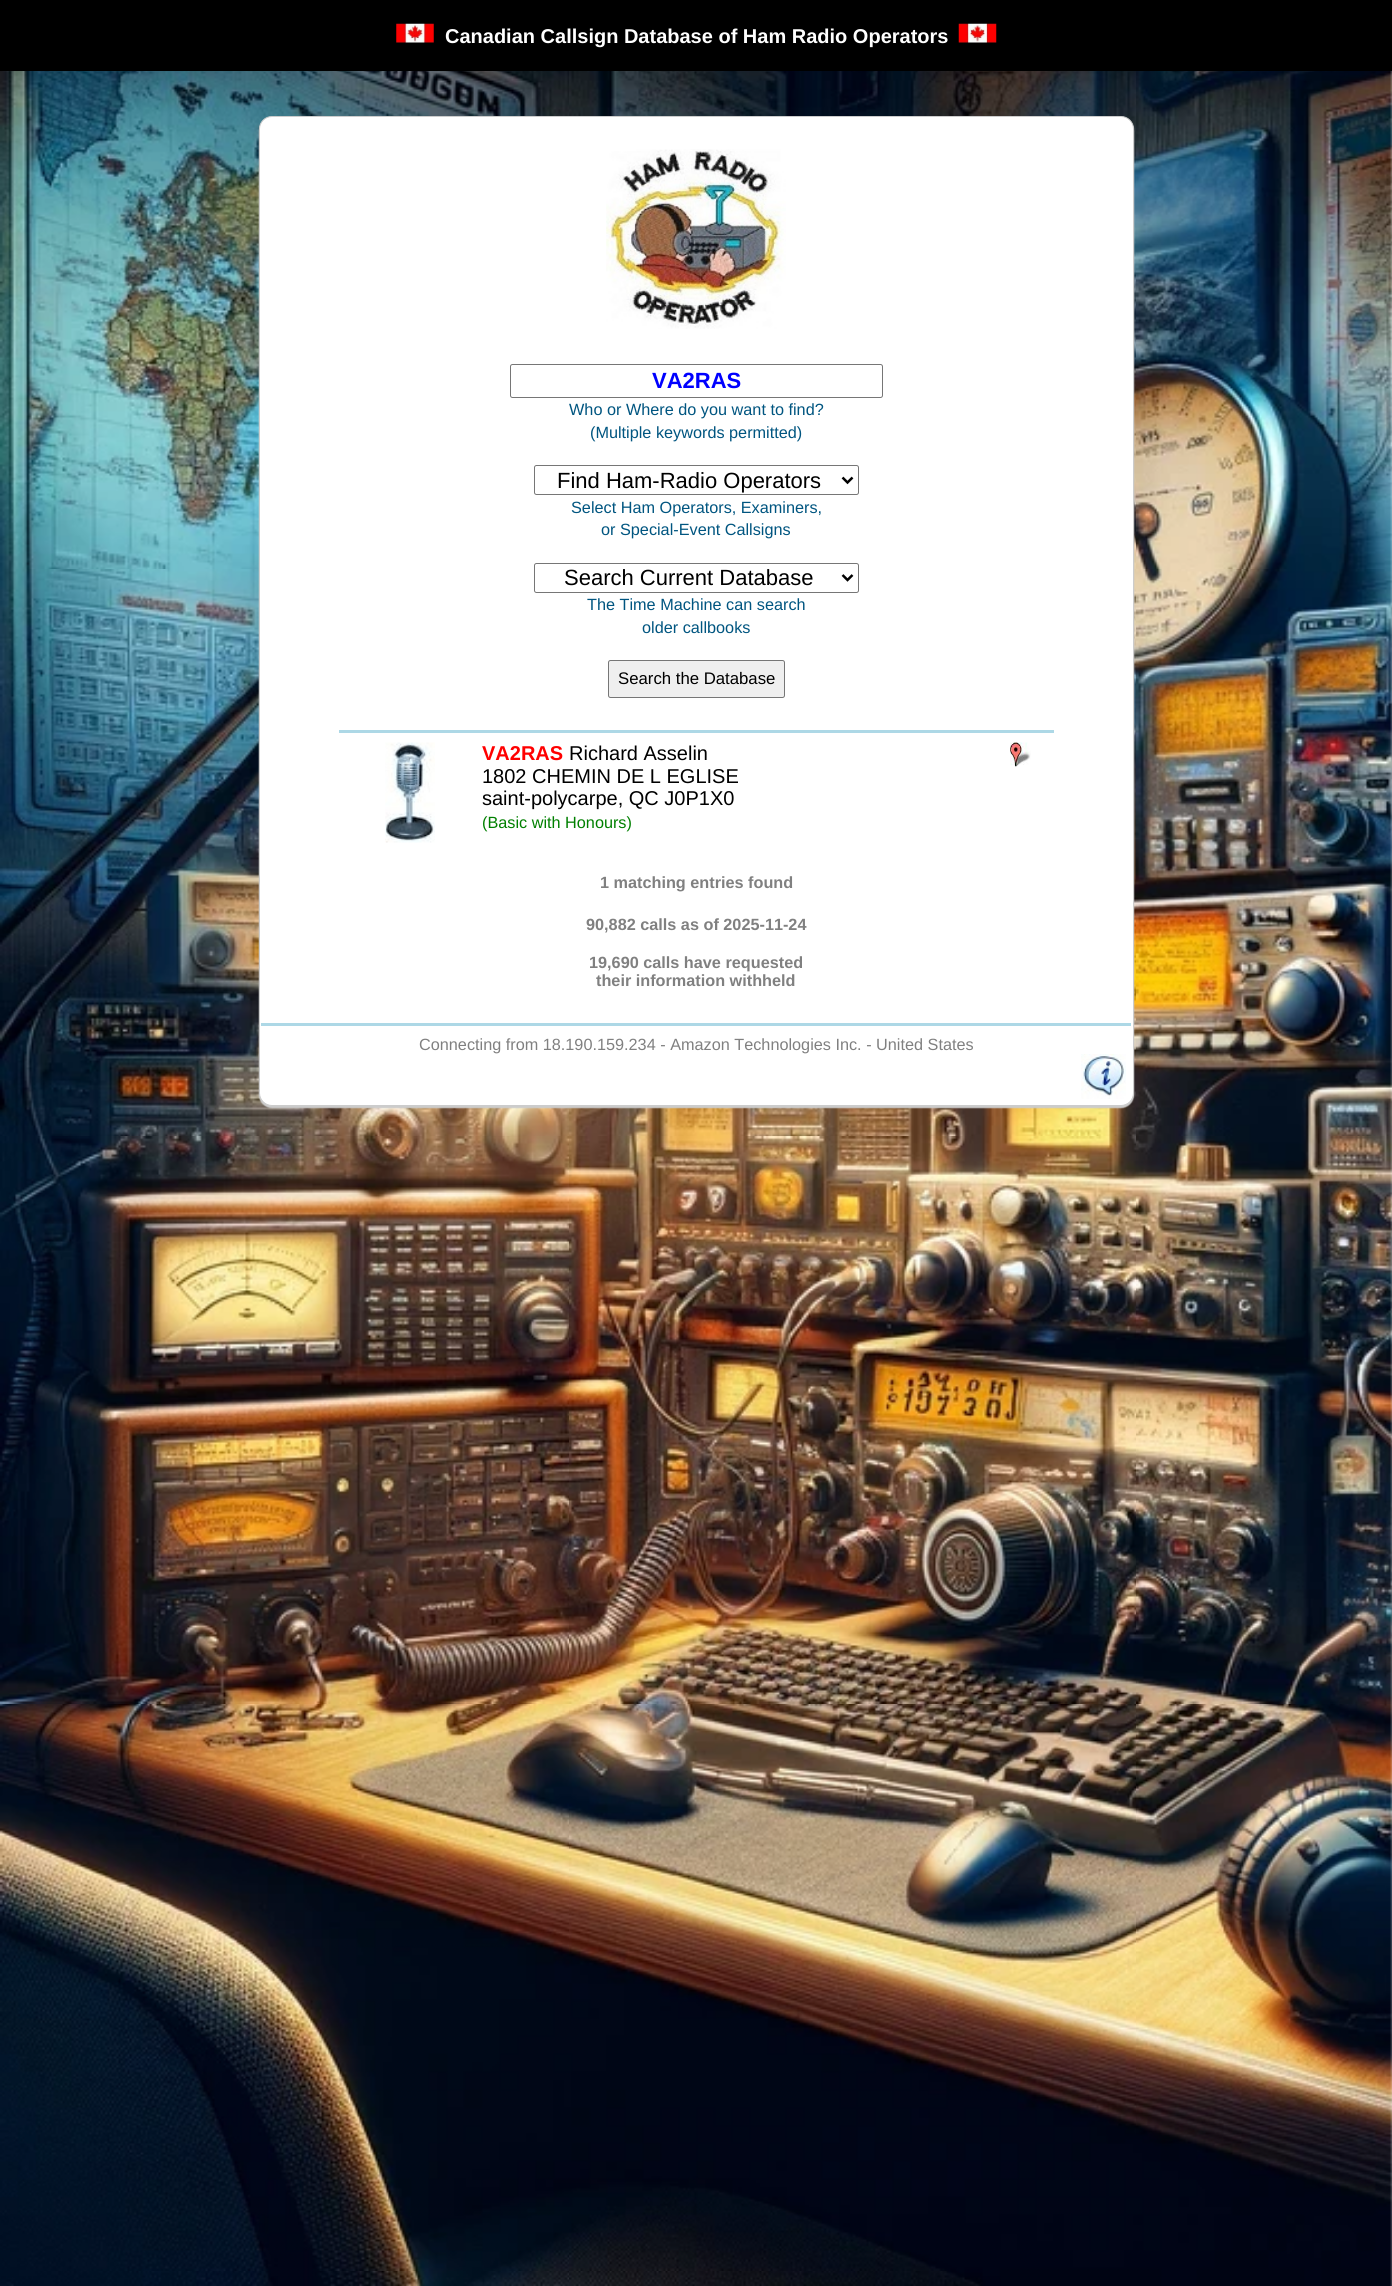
#include <cairo.h>
#include <math.h>
#include <stddef.h>


static void rgb(cairo_t *cr, int r, int g, int b)
{
	cairo_set_source_rgb(cr, r / 255.0, g / 255.0, b / 255.0);
}

static void face(cairo_t *cr, const char *family, double size, int italic, int bold)
{
	cairo_select_font_face(cr, family, italic ? CAIRO_FONT_SLANT_ITALIC : CAIRO_FONT_SLANT_NORMAL,
		bold ? CAIRO_FONT_WEIGHT_BOLD : CAIRO_FONT_WEIGHT_NORMAL);
	cairo_set_font_size(cr, size);
}

static void label(cairo_t *cr, double x, double y, const char *s)
{
	cairo_move_to(cr, x, y);
	cairo_show_text(cr, s);
}

static void rect(cairo_t *cr, double x, double y, double w, double h)
{
	cairo_rectangle(cr, x, y, w, h);
	cairo_fill(cr);
}

static void rrect(cairo_t *cr, double x, double y, double w, double h, double r)
{
	cairo_new_sub_path(cr);
	cairo_arc(cr, x + w - r, y + h - r, r, 0, M_PI / 2);
	cairo_arc(cr, x + r, y + h - r, r, M_PI / 2, M_PI);
	cairo_arc(cr, x + r, y + r, r, M_PI, 1.5 * M_PI);
	cairo_arc(cr, x + w - r, y + r, r, 1.5 * M_PI, 2 * M_PI);
	cairo_close_path(cr);
}

static void soft_shadow(cairo_t *cr, double x, double y, double w, double h, double r, double blur, double alpha)
{
	cairo_push_group_with_content(cr, CAIRO_CONTENT_ALPHA);
	cairo_set_operator(cr, CAIRO_OPERATOR_SOURCE);
	for (int i = 15; i >= -15 && fmin(w, h) + blur * i / 3 > 0; i -= 2) {
		double e = blur * i / 6;
		cairo_set_source_rgba(cr, 0, 0, 0, alpha * erfc((i - 1) / 8.5) / 2);
		rrect(cr, x - e, y - e, w + 2 * e, h + 2 * e, fmax(0, fmin(r + e + blur * .6, fmin(w, h) / 2 + e)));
		cairo_fill(cr);
	}
	cairo_pattern_t *soft = cairo_pop_group(cr);
	cairo_mask(cr, soft);
	cairo_pattern_destroy(soft);
}

static void image(cairo_t *cr, const char *path, double x, double y, double w, double h)
{
	cairo_surface_t *image = cairo_image_surface_create_from_png(path);
	cairo_save(cr);
	cairo_set_source_surface(cr, image, x, y);
	cairo_rectangle(cr, x, y, w, h);
	cairo_fill(cr);
	cairo_restore(cr);
	cairo_surface_destroy(image);
}

static void draw(cairo_t *cr) {
	rgb(cr, 255, 255, 255);
	cairo_paint(cr);
	image(cr, "image0.png", 0, 71, 1392, 2215);
	rgb(cr, 0, 0, 0);
	rect(cr, 0, 0, 1392, 71);
	image(cr, "image1.png", 396, 23, 38, 20);
	face(cr, "Liberation Sans", 20, 0, 1);
	rgb(cr, 255, 255, 255);
	label(cr, 445, 43, "Canadian Callsign Database of Ham Radio Operators");
	image(cr, "image2.png", 958, 23, 39, 20);
	rgb(cr, 204, 204, 204);
	soft_shadow(cr, 259, 118, 875, 990, 13, 0.5, 1);
	rgb(cr, 255, 255, 255);
	rrect(cr, 259.5, 116.5, 874, 989, 12.5);
	cairo_fill_preserve(cr);
	rgb(cr, 204, 204, 204);
	cairo_set_line_width(cr, 1);
	cairo_stroke(cr);
	image(cr, "image3.png", 606, 149, 180, 180);
	rrect(cr, 510.5, 364.5, 372, 33, 2);
	rgb(cr, 118, 118, 118);
	cairo_stroke(cr);
	face(cr, "Liberation Sans", 22, 0, 1);
	rgb(cr, 0, 0, 255);
	label(cr, 652, 388, "VA2RAS");
	face(cr, "Liberation Sans", 16.25, 0, 0);
	rgb(cr, 0, 85, 128);
	label(cr, 569, 415, "Who or Where do you want to find?");
	label(cr, 590, 438, "(Multiple keywords permitted)");
	rrect(cr, 534.5, 465.5, 324, 29, 2);
	rgb(cr, 118, 118, 118);
	cairo_stroke(cr);
	cairo_new_path(cr);
	cairo_move_to(cr, 842.5, 477.5);
	cairo_line_to(cr, 847.5, 482.5);
	cairo_line_to(cr, 852.5, 477.5);
	rgb(cr, 0, 0, 0);
	cairo_set_line_width(cr, 2.5);
	cairo_stroke(cr);
	face(cr, "Liberation Sans", 22, 0, 0);
	label(cr, 557, 488, "Find Ham-Radio Operators");
	face(cr, "Liberation Sans", 16.25, 0, 0);
	rgb(cr, 0, 85, 128);
	label(cr, 571, 513, "Select Ham Operators, Examiners,");
	label(cr, 601, 535, "or Special-Event Callsigns");
	rrect(cr, 534.5, 563.5, 324, 29, 2);
	rgb(cr, 118, 118, 118);
	cairo_set_line_width(cr, 1);
	cairo_stroke(cr);
	cairo_new_path(cr);
	cairo_move_to(cr, 842.5, 575);
	cairo_line_to(cr, 847.5, 580);
	cairo_line_to(cr, 852.5, 575);
	rgb(cr, 0, 0, 0);
	cairo_set_line_width(cr, 2.5);
	cairo_stroke(cr);
	face(cr, "Liberation Sans", 22, 0, 0);
	label(cr, 564, 585, "Search Current Database");
	face(cr, "Liberation Sans", 16.25, 0, 0);
	rgb(cr, 0, 85, 128);
	label(cr, 587, 610, "The Time Machine can search");
	label(cr, 642, 633, "older callbooks");
	rgb(cr, 239, 239, 239);
	rrect(cr, 608.5, 660.5, 176, 37, 2);
	cairo_fill_preserve(cr);
	rgb(cr, 118, 118, 118);
	cairo_set_line_width(cr, 1);
	cairo_stroke(cr);
	face(cr, "Liberation Sans", 16.75, 0, 0);
	rgb(cr, 0, 0, 0);
	label(cr, 618, 684, "Search the Database");
	rgb(cr, 173, 216, 230);
	rect(cr, 339, 730, 715, 3);
	image(cr, "image4.png", 385, 742, 50, 101);
	face(cr, "Liberation Sans", 20, 0, 1);
	rgb(cr, 255, 0, 0);
	label(cr, 482, 760, "VA2RAS");
	face(cr, "Liberation Sans", 20, 0, 0);
	rgb(cr, 0, 0, 0);
	label(cr, 569, 760, "Richard Asselin");
	label(cr, 482, 783, "1802 CHEMIN DE L EGLISE");
	label(cr, 482, 805, "saint-polycarpe, QC J0P1X0");
	face(cr, "Liberation Sans", 16.25, 0, 0);
	rgb(cr, 0, 128, 0);
	label(cr, 482, 828, "(Basic with Honours)");
	image(cr, "image5.png", 1010, 742, 21, 25);
	face(cr, "Liberation Sans", 16.25, 0, 1);
	rgb(cr, 128, 128, 128);
	label(cr, 600, 888, "1 matching entries found");
	label(cr, 586, 930, "90,882 calls as of 2025-11-24");
	label(cr, 589, 968, "19,690 calls have requested");
	label(cr, 596, 986, "their information withheld");
	rgb(cr, 173, 216, 230);
	rect(cr, 261, 1023, 870, 3);
	face(cr, "Liberation Sans", 16.25, 0, 0);
	rgb(cr, 128, 128, 128);
	label(cr, 419, 1050, "Connecting from 18.190.159.234 - Amazon Technologies Inc. - United States");
	image(cr, "image6.png", 1081, 1054, 45, 45);
}

int main(void) {
	cairo_surface_t *surface = cairo_image_surface_create(CAIRO_FORMAT_RGB24, 1392, 2286);
	cairo_t *cr = cairo_create(surface);
	cairo_font_options_t *options = cairo_font_options_create();
	cairo_font_options_set_hint_metrics(options, CAIRO_HINT_METRICS_OFF);
	cairo_font_options_set_hint_style(options, CAIRO_HINT_STYLE_NONE);
	cairo_set_font_options(cr, options);
	cairo_set_miter_limit(cr, 4);
	draw(cr);
	cairo_surface_write_to_png(surface, "render.png");
	cairo_font_options_destroy(options);
	cairo_destroy(cr);
	cairo_surface_destroy(surface);
	return 0;
}
